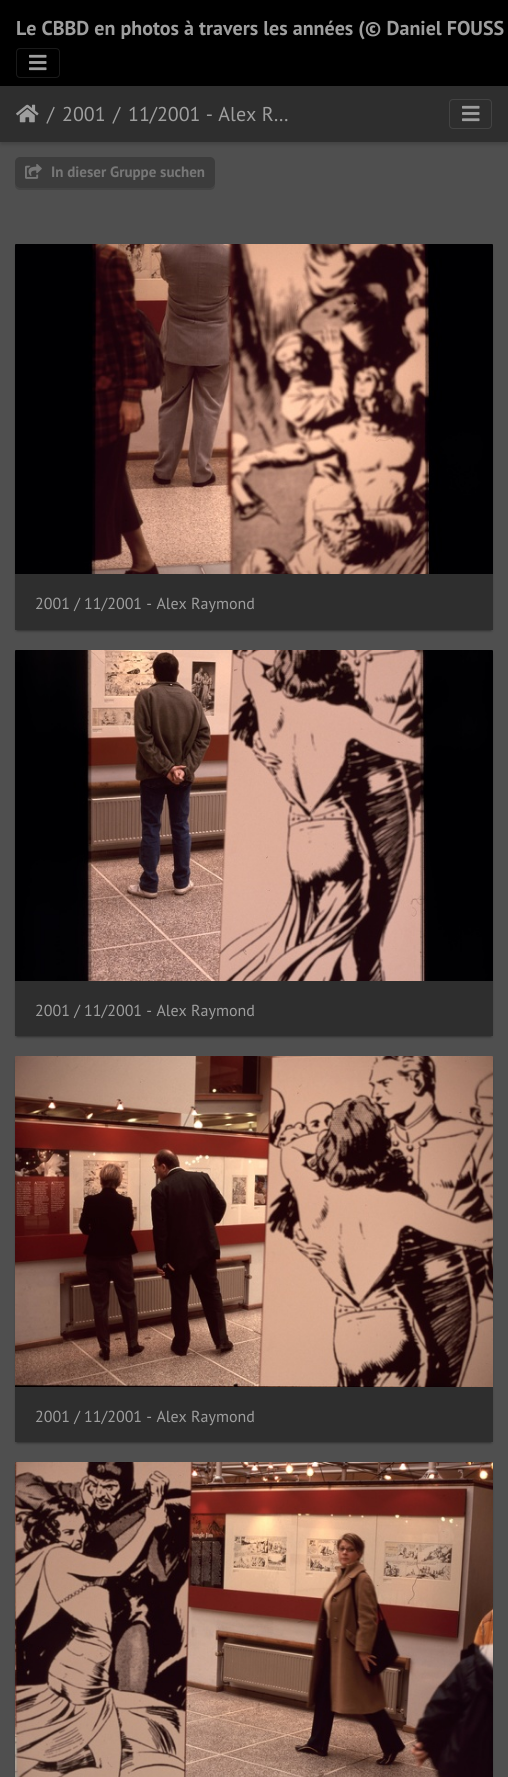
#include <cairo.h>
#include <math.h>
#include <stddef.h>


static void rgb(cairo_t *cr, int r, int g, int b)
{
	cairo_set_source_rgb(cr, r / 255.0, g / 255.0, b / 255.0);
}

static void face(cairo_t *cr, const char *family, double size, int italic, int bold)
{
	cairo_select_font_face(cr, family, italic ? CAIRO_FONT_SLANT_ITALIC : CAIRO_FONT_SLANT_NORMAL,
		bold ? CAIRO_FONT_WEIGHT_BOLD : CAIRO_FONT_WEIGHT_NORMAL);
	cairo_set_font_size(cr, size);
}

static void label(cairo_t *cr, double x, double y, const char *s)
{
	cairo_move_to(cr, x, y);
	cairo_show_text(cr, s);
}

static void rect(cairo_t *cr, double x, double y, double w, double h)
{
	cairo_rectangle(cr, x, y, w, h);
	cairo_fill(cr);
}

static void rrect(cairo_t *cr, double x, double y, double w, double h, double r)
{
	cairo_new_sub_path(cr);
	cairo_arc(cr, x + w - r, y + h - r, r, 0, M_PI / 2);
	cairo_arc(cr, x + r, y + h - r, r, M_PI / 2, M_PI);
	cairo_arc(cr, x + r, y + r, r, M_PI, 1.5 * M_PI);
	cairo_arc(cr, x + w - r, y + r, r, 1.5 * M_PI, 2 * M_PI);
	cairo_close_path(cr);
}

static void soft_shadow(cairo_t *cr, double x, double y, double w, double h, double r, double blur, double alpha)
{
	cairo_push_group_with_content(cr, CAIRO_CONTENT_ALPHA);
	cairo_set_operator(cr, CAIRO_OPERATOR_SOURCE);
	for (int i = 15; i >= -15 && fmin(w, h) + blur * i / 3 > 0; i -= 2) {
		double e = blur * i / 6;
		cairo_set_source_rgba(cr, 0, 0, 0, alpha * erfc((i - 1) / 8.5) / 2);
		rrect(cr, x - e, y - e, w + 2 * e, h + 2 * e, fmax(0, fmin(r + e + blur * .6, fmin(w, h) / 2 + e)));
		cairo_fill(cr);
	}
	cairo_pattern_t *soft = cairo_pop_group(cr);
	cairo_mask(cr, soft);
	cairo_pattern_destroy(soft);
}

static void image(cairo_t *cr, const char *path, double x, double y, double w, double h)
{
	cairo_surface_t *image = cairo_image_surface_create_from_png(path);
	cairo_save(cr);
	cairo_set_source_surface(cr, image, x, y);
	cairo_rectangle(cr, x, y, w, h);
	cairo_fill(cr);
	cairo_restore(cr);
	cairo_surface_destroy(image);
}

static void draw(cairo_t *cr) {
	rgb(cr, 79, 79, 79);
	cairo_paint(cr);
	rgb(cr, 0, 0, 0);
	soft_shadow(cr, 1, 90, 506, 54, 0, 2.5, 0.2);
	rgb(cr, 0, 0, 0);
	rect(cr, 0, 0, 508, 86);
	face(cr, "PT Sans", 20, 0, 1);
	rgb(cr, 158, 158, 158);
	label(cr, 16, 35, "Le CBBD en photos à travers les années (© Daniel FOUSS");
	rrect(cr, 16.5, 48.5, 43, 29, 3.5);
	rgb(cr, 26, 26, 26);
	cairo_set_line_width(cr, 1);
	cairo_stroke(cr);
	image(cr, "image0.png", 29, 54, 18, 17);
	rgb(cr, 46, 46, 46);
	rect(cr, 0, 86, 508, 56);
	image(cr, "image1.png", 16, 104, 23, 19);
	face(cr, "PT Sans", 20, 0, 0);
	rgb(cr, 158, 158, 158);
	label(cr, 47, 121, "/");
	label(cr, 62, 121, "2001");
	label(cr, 113, 121, "/");
	label(cr, 128, 121, "11/2001 - Alex R…");
	rrect(cr, 449.5, 99.5, 42, 29, 3.5);
	rgb(cr, 67, 67, 67);
	cairo_stroke(cr);
	image(cr, "image2.png", 462, 105, 18, 17);
	rgb(cr, 68, 68, 68);
	cairo_new_path(cr);
	cairo_move_to(cr, 15, 183);
	cairo_line_to(cr, 15, 185);
	cairo_curve_to(cr, 15, 188, 17, 190, 20, 190);
	cairo_line_to(cr, 210, 190);
	cairo_curve_to(cr, 213, 190, 215, 188, 215, 185);
	cairo_line_to(cr, 215, 183);
	cairo_curve_to(cr, 215, 186, 213, 188, 210, 188);
	cairo_line_to(cr, 20, 188);
	cairo_curve_to(cr, 17, 188, 15, 186, 15, 183);
	cairo_close_path(cr);
	cairo_fill(cr);
	rgb(cr, 60, 60, 60);
	rrect(cr, 15, 157, 200, 31, 5);
	cairo_fill(cr);
	image(cr, "image3.png", 25, 164, 17, 15);
	face(cr, "PT Sans", 15, 0, 1);
	rgb(cr, 119, 119, 119);
	label(cr, 51, 177, "In dieser Gruppe suchen");
	rgb(cr, 0, 0, 0);
	soft_shadow(cr, 17, 249, 474, 382, 0, 0.5, 0.2);
	soft_shadow(cr, 15, 246, 478, 386, 2, 1, 0.14);
	image(cr, "image4.png", 15, 244, 478, 330);
	rgb(cr, 46, 46, 46);
	rect(cr, 15, 574, 478, 56);
	face(cr, "PT Sans", 16, 0, 0);
	rgb(cr, 158, 158, 158);
	label(cr, 35, 609, "2001 / 11/2001 - Alex Raymond");
	rgb(cr, 0, 0, 0);
	soft_shadow(cr, 17, 655, 474, 382, 0, 0.5, 0.2);
	soft_shadow(cr, 15, 652, 478, 386, 2, 1, 0.14);
	image(cr, "image5.png", 15, 650, 478, 331);
	rgb(cr, 46, 46, 46);
	rect(cr, 15, 981, 478, 55);
	rgb(cr, 158, 158, 158);
	label(cr, 35, 1016, "2001 / 11/2001 - Alex Raymond");
	rgb(cr, 0, 0, 0);
	soft_shadow(cr, 17, 1061, 474, 382, 0, 0.5, 0.2);
	soft_shadow(cr, 15, 1058, 478, 386, 2, 1, 0.14);
	image(cr, "image6.png", 15, 1056, 478, 331);
	rgb(cr, 46, 46, 46);
	rect(cr, 15, 1387, 478, 55);
	rgb(cr, 158, 158, 158);
	label(cr, 35, 1422, "2001 / 11/2001 - Alex Raymond");
	rgb(cr, 0, 0, 0);
	soft_shadow(cr, 15, 1464, 478, 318, 2, 1, 0.14);
	image(cr, "image7.png", 15, 1462, 478, 315);
}

int main(void) {
	cairo_surface_t *surface = cairo_image_surface_create(CAIRO_FORMAT_RGB24, 508, 1777);
	cairo_t *cr = cairo_create(surface);
	cairo_font_options_t *options = cairo_font_options_create();
	cairo_font_options_set_hint_metrics(options, CAIRO_HINT_METRICS_OFF);
	cairo_font_options_set_hint_style(options, CAIRO_HINT_STYLE_NONE);
	cairo_set_font_options(cr, options);
	cairo_set_miter_limit(cr, 4);
	draw(cr);
	cairo_surface_write_to_png(surface, "render.png");
	cairo_font_options_destroy(options);
	cairo_destroy(cr);
	cairo_surface_destroy(surface);
	return 0;
}
